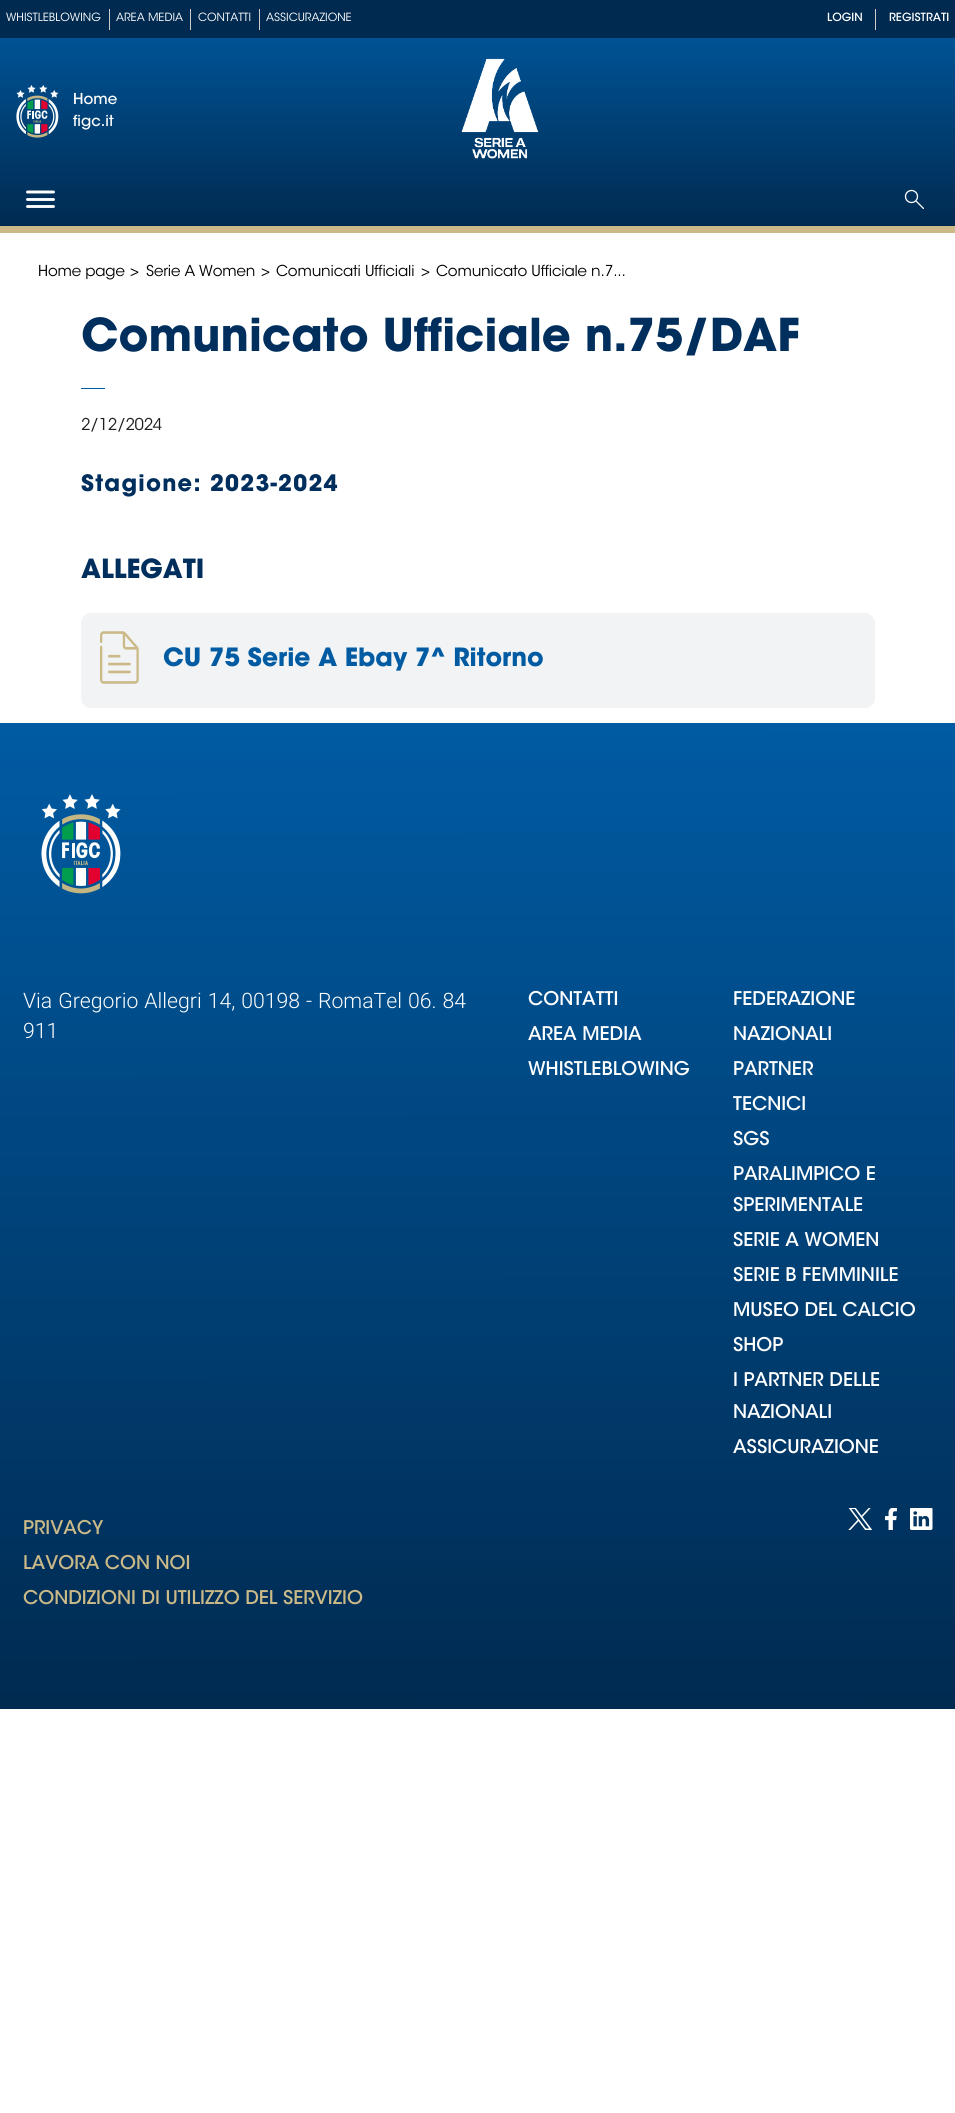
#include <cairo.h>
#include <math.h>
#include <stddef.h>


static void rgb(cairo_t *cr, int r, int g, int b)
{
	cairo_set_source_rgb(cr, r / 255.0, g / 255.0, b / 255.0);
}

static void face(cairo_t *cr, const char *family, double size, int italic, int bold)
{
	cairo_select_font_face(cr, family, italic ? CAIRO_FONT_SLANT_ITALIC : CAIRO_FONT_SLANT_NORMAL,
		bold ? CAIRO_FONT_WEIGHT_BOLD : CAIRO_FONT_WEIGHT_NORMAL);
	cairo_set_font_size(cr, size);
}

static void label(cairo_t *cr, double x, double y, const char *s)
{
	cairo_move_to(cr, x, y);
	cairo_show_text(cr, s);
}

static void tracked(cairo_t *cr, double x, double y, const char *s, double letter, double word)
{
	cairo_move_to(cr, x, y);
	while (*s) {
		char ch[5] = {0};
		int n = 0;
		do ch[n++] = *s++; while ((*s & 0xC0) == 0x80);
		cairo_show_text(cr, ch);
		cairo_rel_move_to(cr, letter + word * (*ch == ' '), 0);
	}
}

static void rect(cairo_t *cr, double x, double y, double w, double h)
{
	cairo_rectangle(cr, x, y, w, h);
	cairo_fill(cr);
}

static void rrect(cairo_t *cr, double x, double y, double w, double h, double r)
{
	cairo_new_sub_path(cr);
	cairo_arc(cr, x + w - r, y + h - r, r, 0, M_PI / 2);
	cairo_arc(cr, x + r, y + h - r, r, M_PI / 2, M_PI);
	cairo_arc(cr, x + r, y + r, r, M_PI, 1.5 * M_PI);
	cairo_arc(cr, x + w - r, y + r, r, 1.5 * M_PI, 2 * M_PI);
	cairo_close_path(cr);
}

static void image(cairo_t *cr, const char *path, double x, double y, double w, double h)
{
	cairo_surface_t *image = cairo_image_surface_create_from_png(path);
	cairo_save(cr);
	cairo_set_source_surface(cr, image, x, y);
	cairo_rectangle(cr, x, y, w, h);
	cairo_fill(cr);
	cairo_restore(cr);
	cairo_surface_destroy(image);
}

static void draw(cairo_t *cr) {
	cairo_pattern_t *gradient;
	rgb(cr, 255, 255, 255);
	cairo_paint(cr);
	gradient = cairo_pattern_create_linear(478, 0, 478, 226);
	cairo_pattern_add_color_stop_rgba(gradient, 0, 0, 0.357, 0.639, 1);
	cairo_pattern_add_color_stop_rgba(gradient, 1, 0, 0.165, 0.314, 1);
	cairo_set_source(cr, gradient);
	cairo_pattern_destroy(gradient);
	rect(cr, 0, 38, 955, 188);
	rgb(cr, 203, 186, 136);
	rect(cr, 0, 226, 955, 7);
	rgb(cr, 0, 42, 80);
	rect(cr, 0, 0, 955, 38);
	face(cr, "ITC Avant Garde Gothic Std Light", 11.25, 0, 0);
	rgb(cr, 255, 255, 255);
	label(cr, 6, 21, "WHISTLEBLOWING");
	rgb(cr, 204, 204, 204);
	rect(cr, 109, 9, 1, 21);
	rgb(cr, 255, 255, 255);
	label(cr, 116, 21, "AREA MEDIA");
	rgb(cr, 204, 204, 204);
	rect(cr, 190, 9, 1, 21);
	rgb(cr, 255, 255, 255);
	label(cr, 198, 21, "CONTATTI");
	rgb(cr, 204, 204, 204);
	rect(cr, 259, 9, 1, 21);
	rgb(cr, 255, 255, 255);
	label(cr, 266, 21, "ASSICURAZIONE");
	face(cr, "ITC Avant Garde Gothic Std Medium", 11.25, 0, 0);
	label(cr, 827, 21, "LOGIN");
	rgb(cr, 204, 204, 204);
	rect(cr, 875, 9, 1, 21);
	rgb(cr, 255, 255, 255);
	label(cr, 889, 21, "REGISTRATI");
	image(cr, "image0.png", 16, 85, 43, 53);
	face(cr, "ITC Avant Garde Gothic Std Medium", 15, 0, 0);
	label(cr, 73, 104, "Home");
	label(cr, 73, 126, "figc.it");
	image(cr, "image1.png", 461, 58, 78, 101);
	cairo_new_path(cr);
	cairo_move_to(cr, 27.5, 192);
	cairo_line_to(cr, 53.5, 192);
	cairo_move_to(cr, 27.5, 199.5);
	cairo_line_to(cr, 53.5, 199.5);
	cairo_move_to(cr, 27.5, 206.5);
	cairo_line_to(cr, 53.5, 206.5);
	cairo_set_line_width(cr, 2.9);
	cairo_set_line_cap(cr, CAIRO_LINE_CAP_ROUND);
	cairo_stroke(cr);
	cairo_arc(cr, 911.5, 196.5, 6, 0, 2 * M_PI);
	cairo_set_line_width(cr, 1.3);
	cairo_set_line_cap(cr, CAIRO_LINE_CAP_BUTT);
	cairo_stroke(cr);
	cairo_save(cr);
	cairo_rectangle(cr, 905, 190, 19, 19);
	cairo_clip(cr);
	cairo_new_path(cr);
	cairo_move_to(cr, 916.5, 201.5);
	cairo_line_to(cr, 924, 209);
	cairo_set_line_cap(cr, CAIRO_LINE_CAP_ROUND);
	cairo_stroke(cr);
	cairo_restore(cr);
	face(cr, "ITC Avant Garde Gothic Std Light", 15, 0, 0);
	rgb(cr, 0, 0, 0);
	tracked(cr, 38, 276, "Home page", -0.15, 0);
	tracked(cr, 130, 276, ">", -0.15, 0);
	tracked(cr, 146, 276, "Serie A Women", -0.15, 0);
	tracked(cr, 261, 276, ">", -0.15, 0);
	tracked(cr, 276, 276, "Comunicati Ufficiali", -0.15, 0);
	tracked(cr, 421, 276, ">", -0.15, 0);
	tracked(cr, 436, 276, "Comunicato Ufficiale n.7...", -0.15, 0);
	face(cr, "ITC Avant Garde Gothic Std", 45, 0, 1);
	rgb(cr, 0, 46, 93);
	label(cr, 81, 351, "Comunicato Ufficiale n.75/DAF");
	rgb(cr, 0, 91, 163);
	rect(cr, 81, 388, 24, 1);
	face(cr, "ITC Avant Garde Gothic Std Light", 16.25, 0, 0);
	rgb(cr, 32, 33, 36);
	tracked(cr, 81, 430, "2/12/2024", -0.25, 0);
	face(cr, "ITC Avant Garde Gothic Std", 22.5, 0, 1);
	rgb(cr, 0, 46, 93);
	tracked(cr, 81, 491, "Stagione: 2023-2024", 1.25, 0);
	face(cr, "ITC Avant Garde Gothic Std", 26.25, 0, 1);
	label(cr, 81, 578, "ALLEGATI");
	rgb(cr, 241, 243, 244);
	rrect(cr, 81, 613, 794, 95, 10);
	cairo_fill(cr);
	image(cr, "image2.png", 100, 631, 39, 53);
	face(cr, "ITC Avant Garde Gothic Std", 25, 0, 1);
	rgb(cr, 0, 91, 163);
	label(cr, 163, 666, "CU 75 Serie A Ebay 7^ Ritorno");
	gradient = cairo_pattern_create_linear(477, 723, 478, 1709);
	cairo_pattern_add_color_stop_rgba(gradient, 0, 0, 0.357, 0.639, 1);
	cairo_pattern_add_color_stop_rgba(gradient, 1, 0, 0.165, 0.314, 1);
	cairo_set_source(cr, gradient);
	cairo_pattern_destroy(gradient);
	rect(cr, 0, 723, 955, 986);
	image(cr, "image3.png", 41, 794, 80, 100);
	face(cr, "Roboto Light", 21.25, 0, 0);
	rgb(cr, 255, 255, 255);
	tracked(cr, 23, 1008, "Via Gregorio Allegri 14, 00198 - RomaTel 06. 84", 0, 0.75);
	label(cr, 23, 1038, "911");
	face(cr, "ITC Avant Garde Gothic Std Medium", 18.75, 0, 0);
	label(cr, 528, 1005, "CONTATTI");
	label(cr, 528, 1040, "AREA MEDIA");
	label(cr, 528, 1075, "WHISTLEBLOWING");
	label(cr, 733, 1005, "FEDERAZIONE");
	label(cr, 733, 1040, "NAZIONALI");
	label(cr, 733, 1075, "PARTNER");
	label(cr, 733, 1110, "TECNICI");
	label(cr, 733, 1145, "SGS");
	label(cr, 733, 1180, "PARALIMPICO E");
	label(cr, 733, 1211, "SPERIMENTALE");
	label(cr, 733, 1246, "SERIE A WOMEN");
	label(cr, 733, 1281, "SERIE B FEMMINILE");
	label(cr, 733, 1316, "MUSEO DEL CALCIO");
	label(cr, 733, 1351, "SHOP");
	label(cr, 733, 1386, "I PARTNER DELLE");
	label(cr, 733, 1418, "NAZIONALI");
	label(cr, 733, 1453, "ASSICURAZIONE");
	rgb(cr, 203, 186, 136);
	label(cr, 23, 1534, "PRIVACY");
	label(cr, 23, 1569, "LAVORA CON NOI");
	label(cr, 23, 1604, "CONDIZIONI DI UTILIZZO DEL SERVIZIO");
	image(cr, "image4.png", 848, 1508, 25, 22);
	image(cr, "image5.png", 885, 1508, 12, 22);
	image(cr, "image6.png", 910, 1508, 23, 22);
}

int main(void) {
	cairo_surface_t *surface = cairo_image_surface_create(CAIRO_FORMAT_RGB24, 955, 2113);
	cairo_t *cr = cairo_create(surface);
	cairo_font_options_t *options = cairo_font_options_create();
	cairo_font_options_set_hint_metrics(options, CAIRO_HINT_METRICS_OFF);
	cairo_font_options_set_hint_style(options, CAIRO_HINT_STYLE_NONE);
	cairo_set_font_options(cr, options);
	cairo_set_miter_limit(cr, 4);
	draw(cr);
	cairo_surface_write_to_png(surface, "render.png");
	cairo_font_options_destroy(options);
	cairo_destroy(cr);
	cairo_surface_destroy(surface);
	return 0;
}
